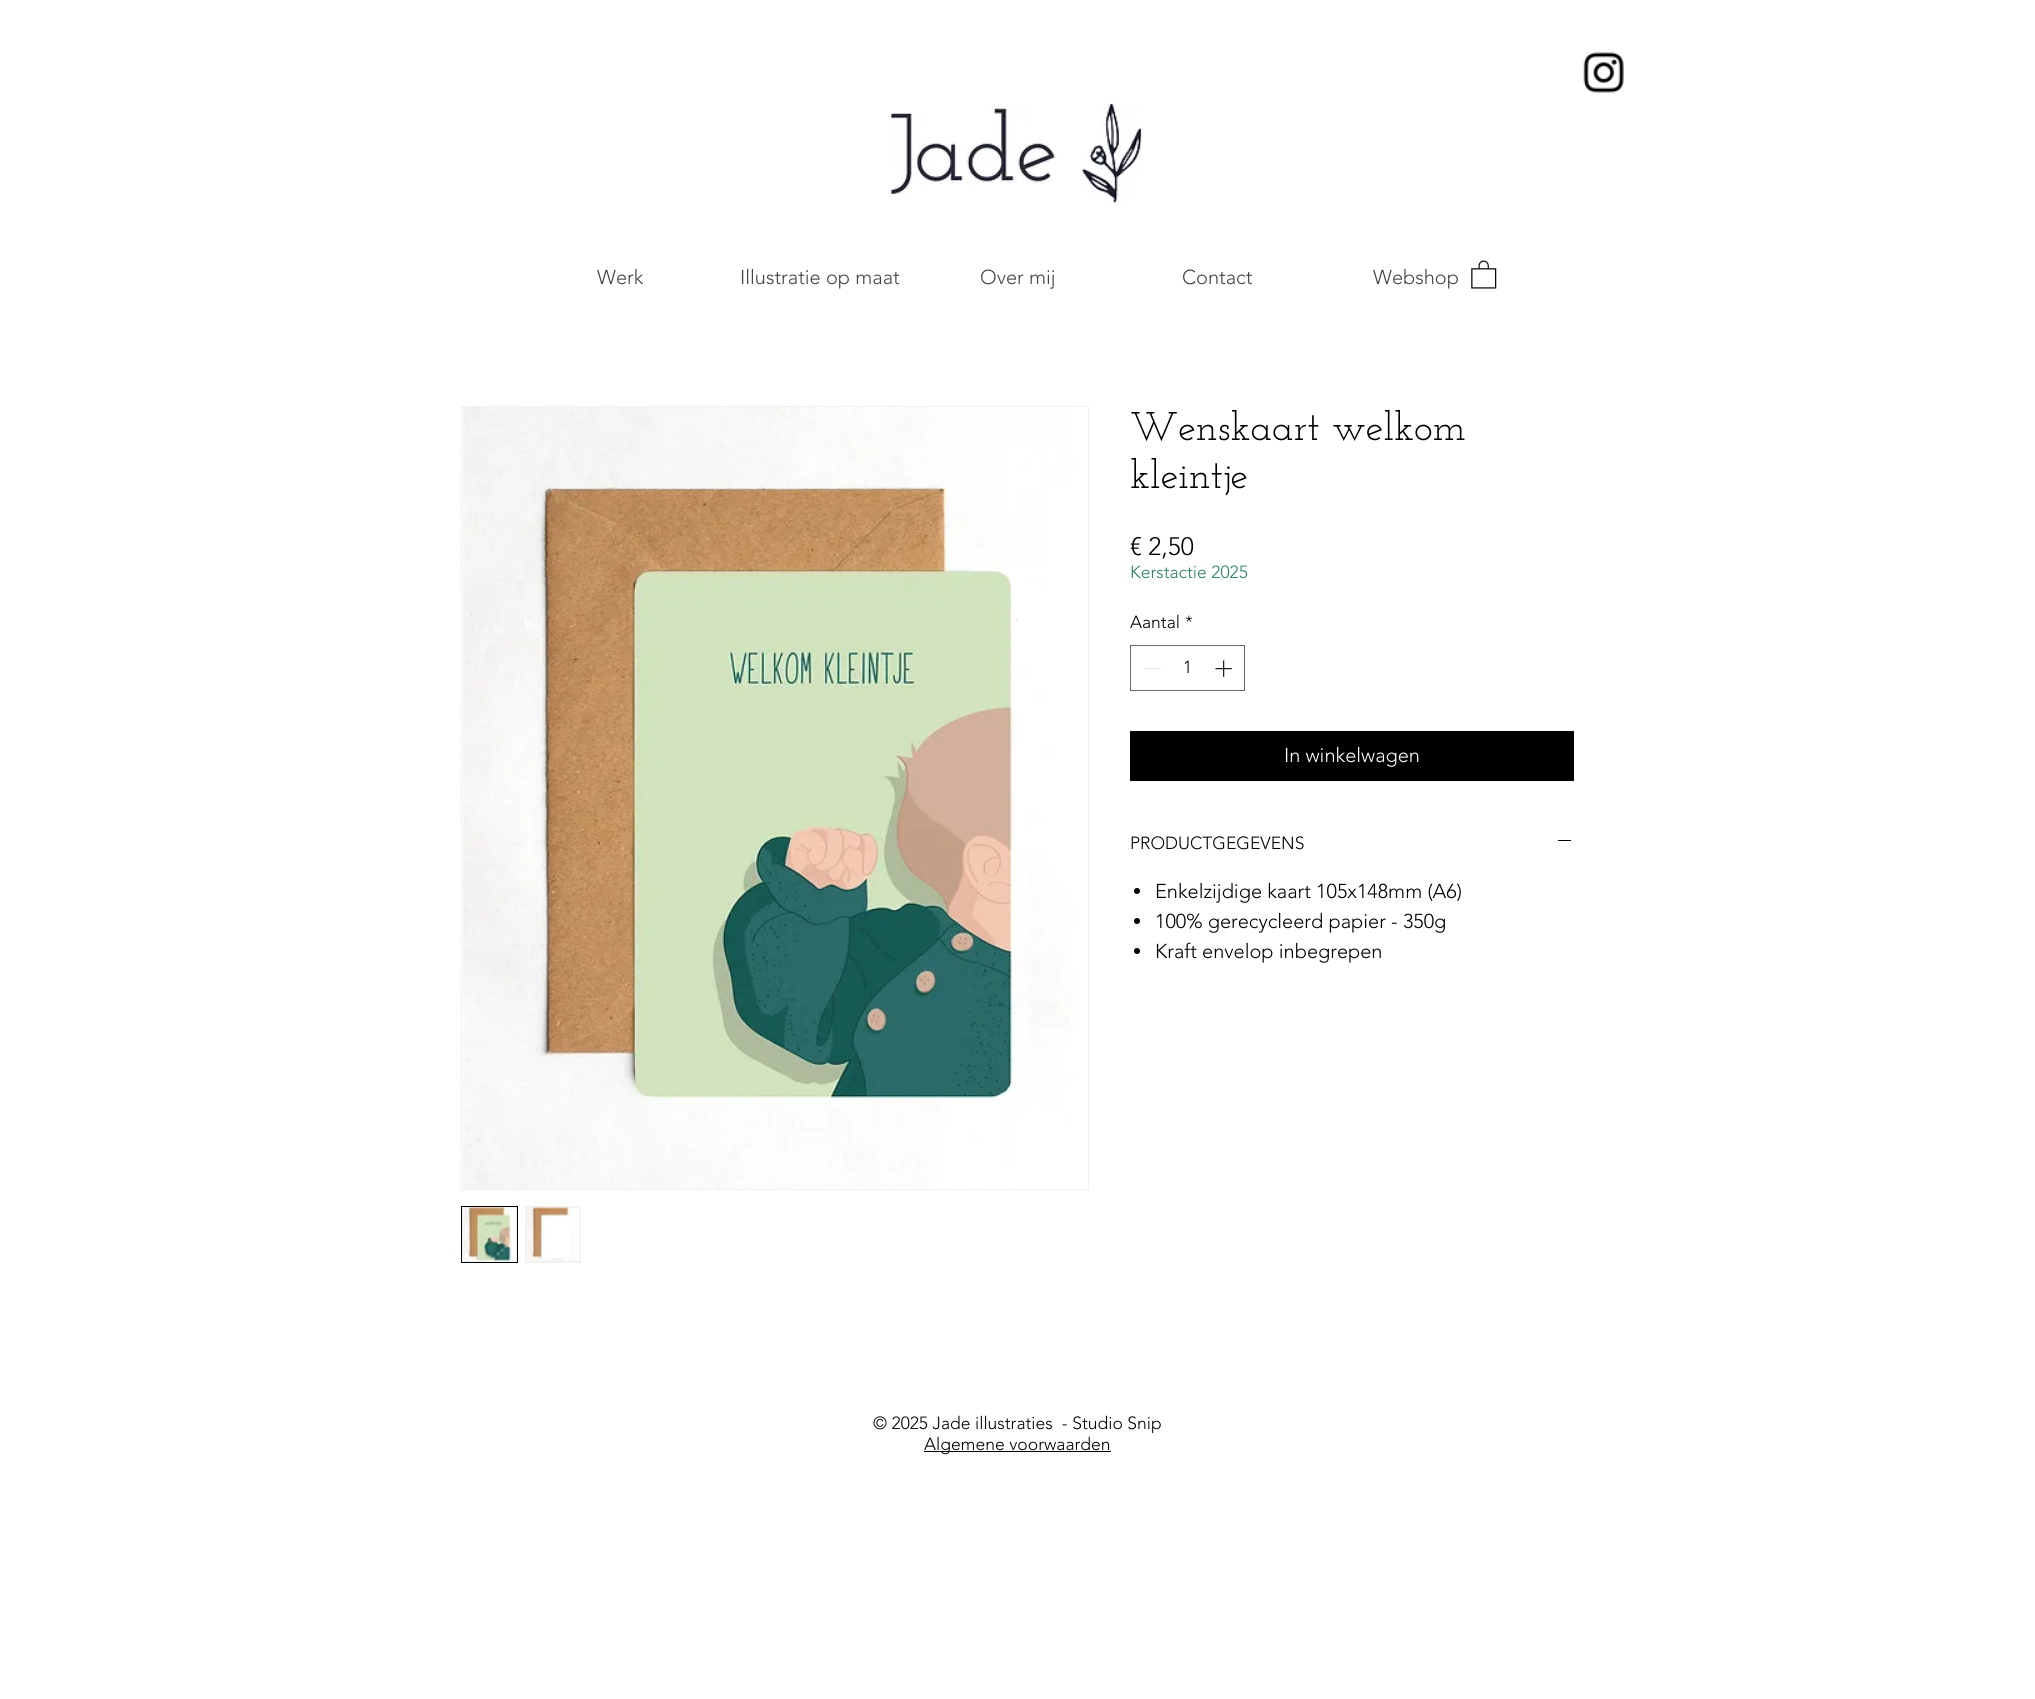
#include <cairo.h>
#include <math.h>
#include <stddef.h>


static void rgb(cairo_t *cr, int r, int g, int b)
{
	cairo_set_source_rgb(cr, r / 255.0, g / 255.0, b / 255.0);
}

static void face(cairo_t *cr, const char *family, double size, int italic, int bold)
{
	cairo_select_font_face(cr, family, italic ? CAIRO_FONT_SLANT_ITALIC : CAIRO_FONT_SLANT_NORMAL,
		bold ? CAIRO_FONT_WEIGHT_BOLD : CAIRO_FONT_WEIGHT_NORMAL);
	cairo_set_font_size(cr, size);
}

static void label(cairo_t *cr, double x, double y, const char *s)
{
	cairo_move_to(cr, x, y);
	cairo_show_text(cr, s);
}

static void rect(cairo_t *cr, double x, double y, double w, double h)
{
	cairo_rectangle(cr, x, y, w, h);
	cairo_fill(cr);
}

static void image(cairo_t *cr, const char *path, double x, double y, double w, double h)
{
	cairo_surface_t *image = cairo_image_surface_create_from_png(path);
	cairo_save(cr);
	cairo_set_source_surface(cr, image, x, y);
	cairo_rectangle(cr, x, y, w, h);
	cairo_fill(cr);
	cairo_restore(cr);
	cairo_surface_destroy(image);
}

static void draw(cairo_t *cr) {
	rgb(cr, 255, 255, 255);
	cairo_paint(cr);
	image(cr, "image0.png", 1583, 52, 41, 41);
	image(cr, "image1.png", 891, 103, 251, 100);
	face(cr, "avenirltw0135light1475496 Light", 20, 0, 0);
	rgb(cr, 68, 68, 68);
	label(cr, 597, 284, "Werk");
	label(cr, 740, 284, "Illustratie op maat");
	label(cr, 980, 284, "Over mij");
	label(cr, 1182, 284, "Contact");
	label(cr, 1373, 284, "Webshop");
	image(cr, "image2.png", 1471, 260, 26, 29);
	cairo_rectangle(cr, 461.5, 406.5, 627, 783);
	rgb(cr, 240, 241, 242);
	cairo_set_line_width(cr, 1);
	cairo_stroke(cr);
	image(cr, "image3.png", 463, 407, 610, 782);
	cairo_rectangle(cr, 461.5, 1206.5, 56, 56);
	cairo_fill_preserve(cr);
	rgb(cr, 0, 0, 0);
	cairo_stroke(cr);
	image(cr, "image4.png", 462, 1207, 55, 55);
	rgb(cr, 240, 241, 242);
	rect(cr, 525, 1206, 56, 57);
	image(cr, "image5.png", 526, 1207, 54, 55);
	face(cr, "Josefin Slab", 40, 0, 0);
	rgb(cr, 0, 0, 0);
	label(cr, 1130, 440, "Wenskaart welkom");
	label(cr, 1130, 488, "kleintje");
	face(cr, "avenirltw0135light1475496 Light", 25, 0, 0);
	label(cr, 1130, 555, "€ 2,50");
	face(cr, "avenirltw0135light1475496 Light", 17.5, 0, 0);
	rgb(cr, 40, 128, 102);
	label(cr, 1130, 578, "Kerstactie 2025");
	rgb(cr, 0, 0, 0);
	label(cr, 1130, 628, "Aantal");
	label(cr, 1185, 628, "*");
	cairo_rectangle(cr, 1130.5, 645.5, 114, 45);
	rgb(cr, 102, 102, 102);
	cairo_stroke(cr);
	rgb(cr, 227, 227, 227);
	rect(cr, 1144, 668, 17, 1);
	rgb(cr, 0, 0, 0);
	label(cr, 1183, 673, "1");
	image(cr, "image6.png", 1215, 660, 17, 17);
	rect(cr, 1130, 731, 444, 50);
	face(cr, "avenirltw0135light1475496 Light", 20, 0, 0);
	rgb(cr, 255, 255, 255);
	label(cr, 1284, 762, "In winkelwagen");
	face(cr, "avenirltw0135light1475496 Light", 17.5, 0, 0);
	rgb(cr, 0, 0, 0);
	label(cr, 1130, 849, "PRODUCTGEGEVENS");
	rect(cr, 1558, 840, 13, 1);
	cairo_new_path(cr);
	cairo_arc(cr, 1137, 891, 3, 0, 2 * M_PI);
	cairo_fill(cr);
	face(cr, "avenirltw0135light1475496 Light", 20, 0, 0);
	label(cr, 1155, 898, "Enkelzijdige kaart 105x148mm (A6)");
	cairo_new_path(cr);
	cairo_arc(cr, 1137, 921, 3, 0, 2 * M_PI);
	cairo_fill(cr);
	label(cr, 1155, 928, "100% gerecycleerd papier - 350g");
	cairo_new_path(cr);
	cairo_arc(cr, 1137, 951, 3, 0, 2 * M_PI);
	cairo_fill(cr);
	label(cr, 1155, 958, "Kraft envelop inbegrepen");
	face(cr, "avenirltw0135light1475496 Light", 17.5, 0, 0);
	label(cr, 873, 1429, "© 2025 Jade illustraties  - Studio Snip");
	rect(cr, 924, 1451, 187, 1);
	label(cr, 924, 1450, "Algemene voorwaarden");
}

int main(void) {
	cairo_surface_t *surface = cairo_image_surface_create(CAIRO_FORMAT_RGB24, 2035, 1699);
	cairo_t *cr = cairo_create(surface);
	cairo_font_options_t *options = cairo_font_options_create();
	cairo_font_options_set_hint_metrics(options, CAIRO_HINT_METRICS_OFF);
	cairo_font_options_set_hint_style(options, CAIRO_HINT_STYLE_NONE);
	cairo_set_font_options(cr, options);
	cairo_set_miter_limit(cr, 4);
	draw(cr);
	cairo_surface_write_to_png(surface, "render.png");
	cairo_font_options_destroy(options);
	cairo_destroy(cr);
	cairo_surface_destroy(surface);
	return 0;
}
